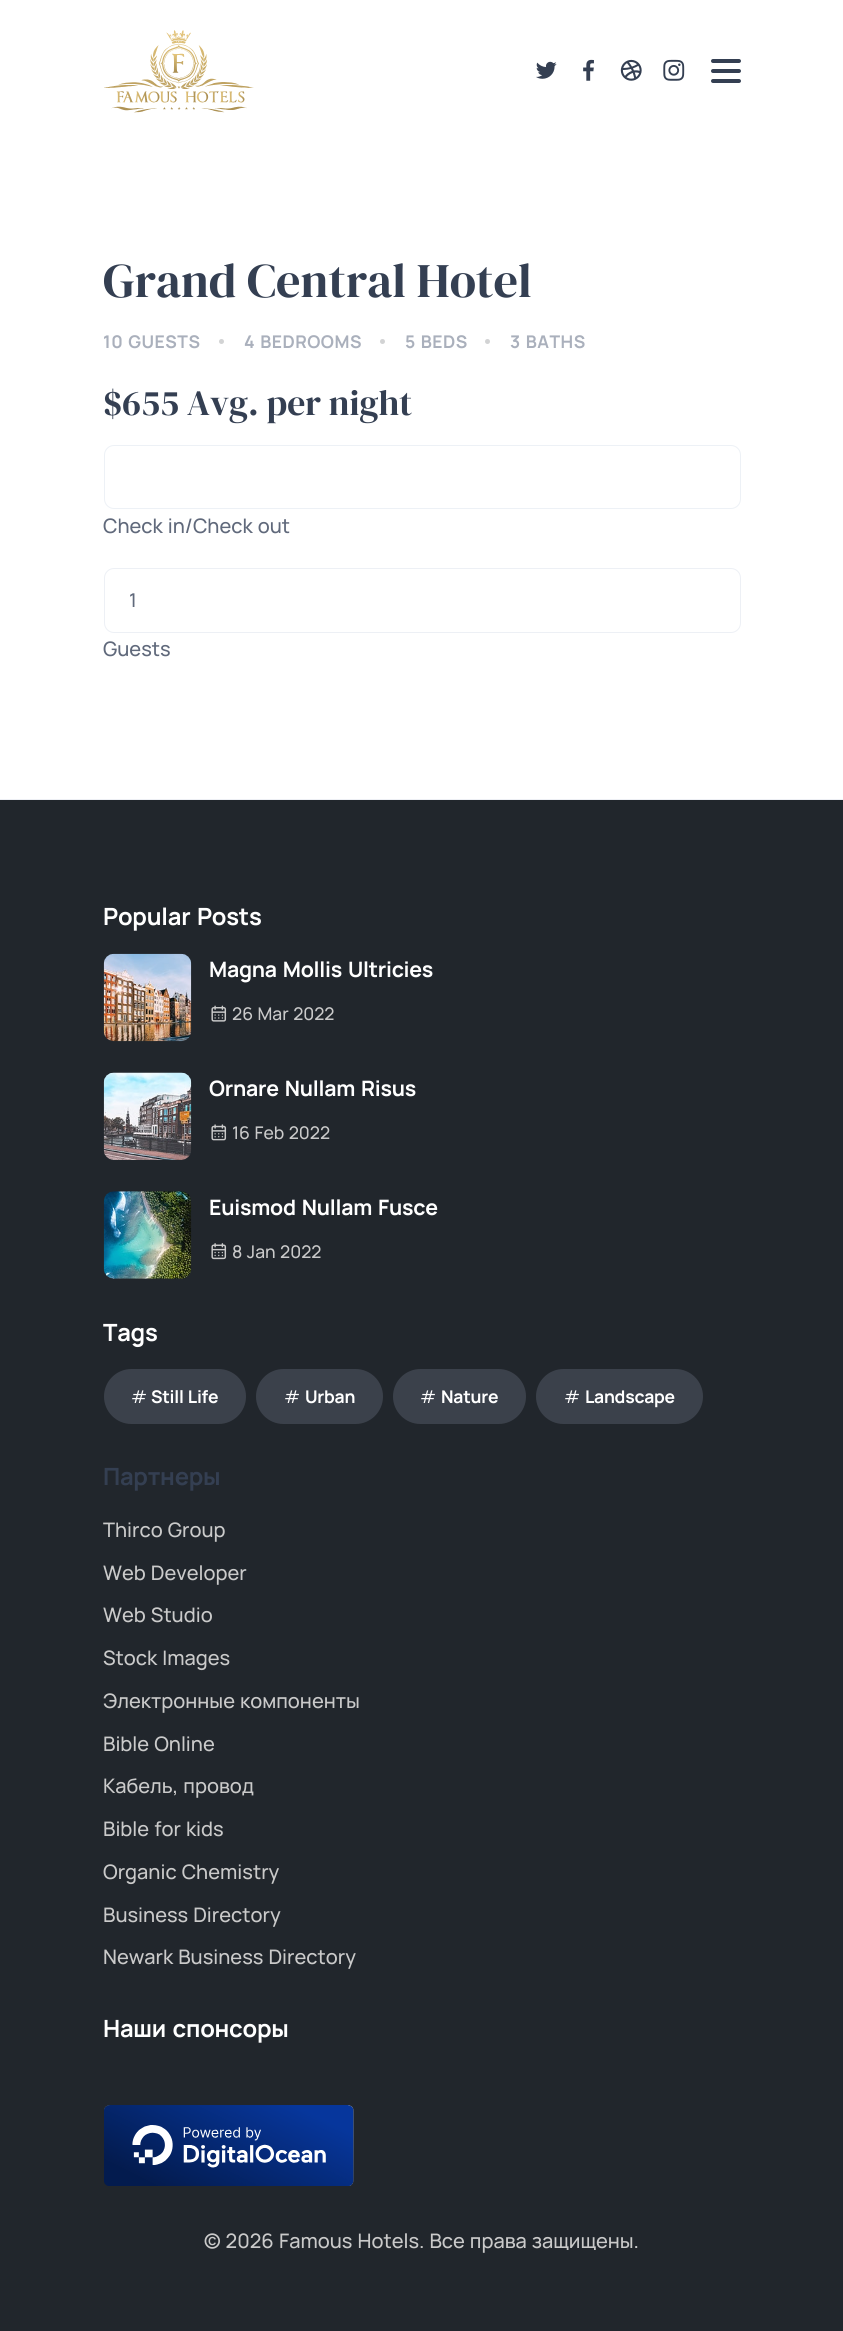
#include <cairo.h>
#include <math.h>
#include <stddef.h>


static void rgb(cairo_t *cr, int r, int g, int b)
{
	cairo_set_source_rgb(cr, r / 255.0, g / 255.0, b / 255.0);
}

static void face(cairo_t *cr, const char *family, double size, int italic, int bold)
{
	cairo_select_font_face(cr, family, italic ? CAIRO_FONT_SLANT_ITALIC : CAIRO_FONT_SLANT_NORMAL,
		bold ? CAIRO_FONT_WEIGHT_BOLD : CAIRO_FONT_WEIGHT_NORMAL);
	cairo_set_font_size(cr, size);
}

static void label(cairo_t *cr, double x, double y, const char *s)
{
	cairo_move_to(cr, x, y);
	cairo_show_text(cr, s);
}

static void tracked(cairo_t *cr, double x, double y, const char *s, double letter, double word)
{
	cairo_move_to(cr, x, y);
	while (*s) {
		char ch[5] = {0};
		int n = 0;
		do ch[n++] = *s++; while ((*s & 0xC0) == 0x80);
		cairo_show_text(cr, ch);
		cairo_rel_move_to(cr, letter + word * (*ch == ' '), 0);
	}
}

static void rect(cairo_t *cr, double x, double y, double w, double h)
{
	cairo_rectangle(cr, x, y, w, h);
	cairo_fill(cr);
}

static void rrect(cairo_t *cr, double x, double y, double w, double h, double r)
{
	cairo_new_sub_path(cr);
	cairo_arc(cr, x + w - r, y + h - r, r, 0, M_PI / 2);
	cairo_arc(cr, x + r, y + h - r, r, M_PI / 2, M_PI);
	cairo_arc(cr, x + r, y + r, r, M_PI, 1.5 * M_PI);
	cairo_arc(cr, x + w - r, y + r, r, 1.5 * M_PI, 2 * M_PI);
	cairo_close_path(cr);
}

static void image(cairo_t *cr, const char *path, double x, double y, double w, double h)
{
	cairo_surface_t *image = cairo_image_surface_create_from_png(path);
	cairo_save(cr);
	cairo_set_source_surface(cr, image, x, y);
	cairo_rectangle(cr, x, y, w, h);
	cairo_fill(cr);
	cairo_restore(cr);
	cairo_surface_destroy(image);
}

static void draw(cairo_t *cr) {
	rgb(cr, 255, 255, 255);
	cairo_paint(cr);
	image(cr, "image0.png", 104, 30, 150, 83);
	image(cr, "image1.png", 536, 61, 21, 18);
	image(cr, "image2.png", 583, 59, 11, 22);
	image(cr, "image3.png", 620, 59, 22, 22);
	image(cr, "image4.png", 663, 59, 22, 22);
	rgb(cr, 52, 63, 82);
	rrect(cr, 711, 59, 30, 4, 2);
	cairo_fill(cr);
	rrect(cr, 711, 69, 30, 4, 2);
	cairo_fill(cr);
	rrect(cr, 711, 79, 30, 4, 2);
	cairo_fill(cr);
	rgb(cr, 237, 239, 244);
	rect(cr, 0, 799, 843, 1);
	face(cr, "DM Serif Display", 48.25, 0, 0);
	rgb(cr, 52, 63, 82);
	label(cr, 103, 297, "Grand Central Hotel");
	face(cr, "Manrope", 17.5, 0, 1);
	rgb(cr, 170, 176, 188);
	tracked(cr, 103, 348, "10 GUESTS", 0.5, 1);
	rgb(cr, 210, 211, 212);
	cairo_new_path(cr);
	cairo_arc(cr, 221.5, 341.5, 2.5, 0, 2 * M_PI);
	cairo_fill(cr);
	rgb(cr, 170, 176, 188);
	tracked(cr, 244, 348, "4 BEDROOMS", 0.5, 1);
	rgb(cr, 210, 211, 212);
	cairo_new_path(cr);
	cairo_arc(cr, 382.5, 341.5, 2.5, 0, 2 * M_PI);
	cairo_fill(cr);
	rgb(cr, 170, 176, 188);
	tracked(cr, 405, 348, "5 BEDS", 0.5, 1);
	rgb(cr, 210, 211, 212);
	cairo_new_path(cr);
	cairo_arc(cr, 487.5, 341.5, 2.5, 0, 2 * M_PI);
	cairo_fill(cr);
	rgb(cr, 170, 176, 188);
	tracked(cr, 510, 348, "3 BATHS", 0.5, 1);
	face(cr, "DM Serif Display", 35.75, 0, 0);
	rgb(cr, 52, 63, 82);
	label(cr, 103, 415, "$655 Avg. per night");
	rrect(cr, 104.5, 445.5, 636, 63, 9.5);
	rgb(cr, 237, 241, 246);
	cairo_set_line_width(cr, 1);
	cairo_stroke(cr);
	face(cr, "Manrope Medium", 20, 0, 0);
	rgb(cr, 96, 105, 123);
	tracked(cr, 103, 533, "Check in/Check out", 0, 1);
	rrect(cr, 104.5, 568.5, 636, 64, 9.5);
	rgb(cr, 237, 240, 245);
	cairo_stroke(cr);
	face(cr, "Manrope Medium", 19, 0, 0);
	rgb(cr, 96, 105, 123);
	label(cr, 129, 607, "1");
	face(cr, "Manrope Medium", 20, 0, 0);
	label(cr, 103, 656, "Guests");
	rgb(cr, 33, 38, 44);
	rect(cr, 0, 800, 843, 1531);
	face(cr, "Manrope", 23.75, 0, 1);
	rgb(cr, 255, 255, 255);
	tracked(cr, 103, 925, "Popular Posts", -0.25, 2);
	image(cr, "image5.png", 103, 953, 89, 89);
	face(cr, "Manrope", 21.25, 0, 1);
	tracked(cr, 209, 977, "Magna Mollis Ultricies", -0.25, 2);
	image(cr, "image6.png", 211, 1005, 16, 17);
	face(cr, "Manrope Medium", 17.5, 0, 0);
	rgb(cr, 202, 202, 202);
	tracked(cr, 232, 1020, "26 Mar 2022", 0, 1);
	image(cr, "image7.png", 103, 1072, 89, 88);
	face(cr, "Manrope", 21.25, 0, 1);
	rgb(cr, 255, 255, 255);
	tracked(cr, 209, 1096, "Ornare Nullam Risus", -0.25, 2);
	image(cr, "image8.png", 211, 1124, 16, 17);
	face(cr, "Manrope Medium", 17.5, 0, 0);
	rgb(cr, 202, 202, 202);
	tracked(cr, 232, 1139, "16 Feb 2022", 0, 1);
	image(cr, "image9.png", 103, 1191, 89, 88);
	face(cr, "Manrope", 21.25, 0, 1);
	rgb(cr, 255, 255, 255);
	tracked(cr, 209, 1215, "Euismod Nullam Fusce", -0.25, 2);
	image(cr, "image10.png", 211, 1243, 16, 17);
	face(cr, "Manrope Medium", 17.5, 0, 0);
	rgb(cr, 202, 202, 202);
	tracked(cr, 232, 1258, "8 Jan 2022", 0, 1);
	face(cr, "Manrope", 23.75, 0, 1);
	rgb(cr, 255, 255, 255);
	tracked(cr, 103, 1341, "Tags", -0.25, 0);
	rgb(cr, 59, 65, 75);
	rrect(cr, 104, 1369, 142, 55, 27.5);
	cairo_fill(cr);
	face(cr, "Manrope", 17.5, 0, 0);
	rgb(cr, 255, 255, 255);
	tracked(cr, 131, 1403, "#", -0.25, 0);
	face(cr, "Manrope", 17.5, 0, 1);
	tracked(cr, 151, 1403, "Still Life", -0.25, 1);
	rgb(cr, 59, 65, 75);
	rrect(cr, 256, 1369, 127, 55, 27.5);
	cairo_fill(cr);
	face(cr, "Manrope", 17.5, 0, 0);
	rgb(cr, 255, 255, 255);
	tracked(cr, 284, 1403, "#", -0.25, 0);
	face(cr, "Manrope", 17.5, 0, 1);
	tracked(cr, 305, 1403, "Urban", -0.25, 0);
	rgb(cr, 59, 65, 75);
	rrect(cr, 393, 1369, 133, 55, 27.5);
	cairo_fill(cr);
	face(cr, "Manrope", 17.5, 0, 0);
	rgb(cr, 255, 255, 255);
	tracked(cr, 420, 1403, "#", -0.25, 0);
	face(cr, "Manrope", 17.5, 0, 1);
	tracked(cr, 441, 1403, "Nature", -0.25, 0);
	rgb(cr, 59, 65, 75);
	rrect(cr, 536, 1369, 167, 55, 27.5);
	cairo_fill(cr);
	face(cr, "Manrope", 17.5, 0, 0);
	rgb(cr, 255, 255, 255);
	tracked(cr, 564, 1403, "#", -0.25, 0);
	face(cr, "Manrope", 17.5, 0, 1);
	tracked(cr, 585, 1403, "Landscape", -0.25, 0);
	face(cr, "Manrope", 23.75, 0, 1);
	rgb(cr, 52, 63, 82);
	tracked(cr, 103, 1485, "Партнеры", -0.25, 0);
	face(cr, "Manrope Medium", 20, 0, 0);
	rgb(cr, 202, 202, 202);
	tracked(cr, 103, 1537, "Thirco Group", 0, 1);
	tracked(cr, 103, 1580, "Web Developer", 0, 1);
	tracked(cr, 103, 1622, "Web Studio", 0, 1);
	tracked(cr, 103, 1665, "Stock Images", 0, 1);
	tracked(cr, 103, 1708, "Электронные компоненты", 0, 1);
	tracked(cr, 103, 1751, "Bible Online", 0, 1);
	tracked(cr, 103, 1793, "Кабель, провод", 0, 1);
	tracked(cr, 103, 1836, "Bible for kids", 0, 1);
	tracked(cr, 103, 1879, "Organic Chemistry", 0, 1);
	tracked(cr, 103, 1922, "Business Directory", 0, 1);
	tracked(cr, 103, 1964, "Newark Business Directory", 0, 1);
	face(cr, "Manrope", 23.75, 0, 1);
	rgb(cr, 255, 255, 255);
	tracked(cr, 103, 2037, "Наши спонсоры", -0.25, 2);
	image(cr, "image11.png", 104, 2105, 250, 81);
	face(cr, "Manrope Medium", 20, 0, 0);
	rgb(cr, 202, 202, 202);
	tracked(cr, 204, 2248, "© 2026", 0, 1);
	tracked(cr, 279, 2248, "Famous Hotels. Все права защищены.", 0, 1);
}

int main(void) {
	cairo_surface_t *surface = cairo_image_surface_create(CAIRO_FORMAT_RGB24, 843, 2331);
	cairo_t *cr = cairo_create(surface);
	cairo_font_options_t *options = cairo_font_options_create();
	cairo_font_options_set_hint_metrics(options, CAIRO_HINT_METRICS_OFF);
	cairo_font_options_set_hint_style(options, CAIRO_HINT_STYLE_NONE);
	cairo_set_font_options(cr, options);
	cairo_set_miter_limit(cr, 4);
	draw(cr);
	cairo_surface_write_to_png(surface, "render.png");
	cairo_font_options_destroy(options);
	cairo_destroy(cr);
	cairo_surface_destroy(surface);
	return 0;
}
